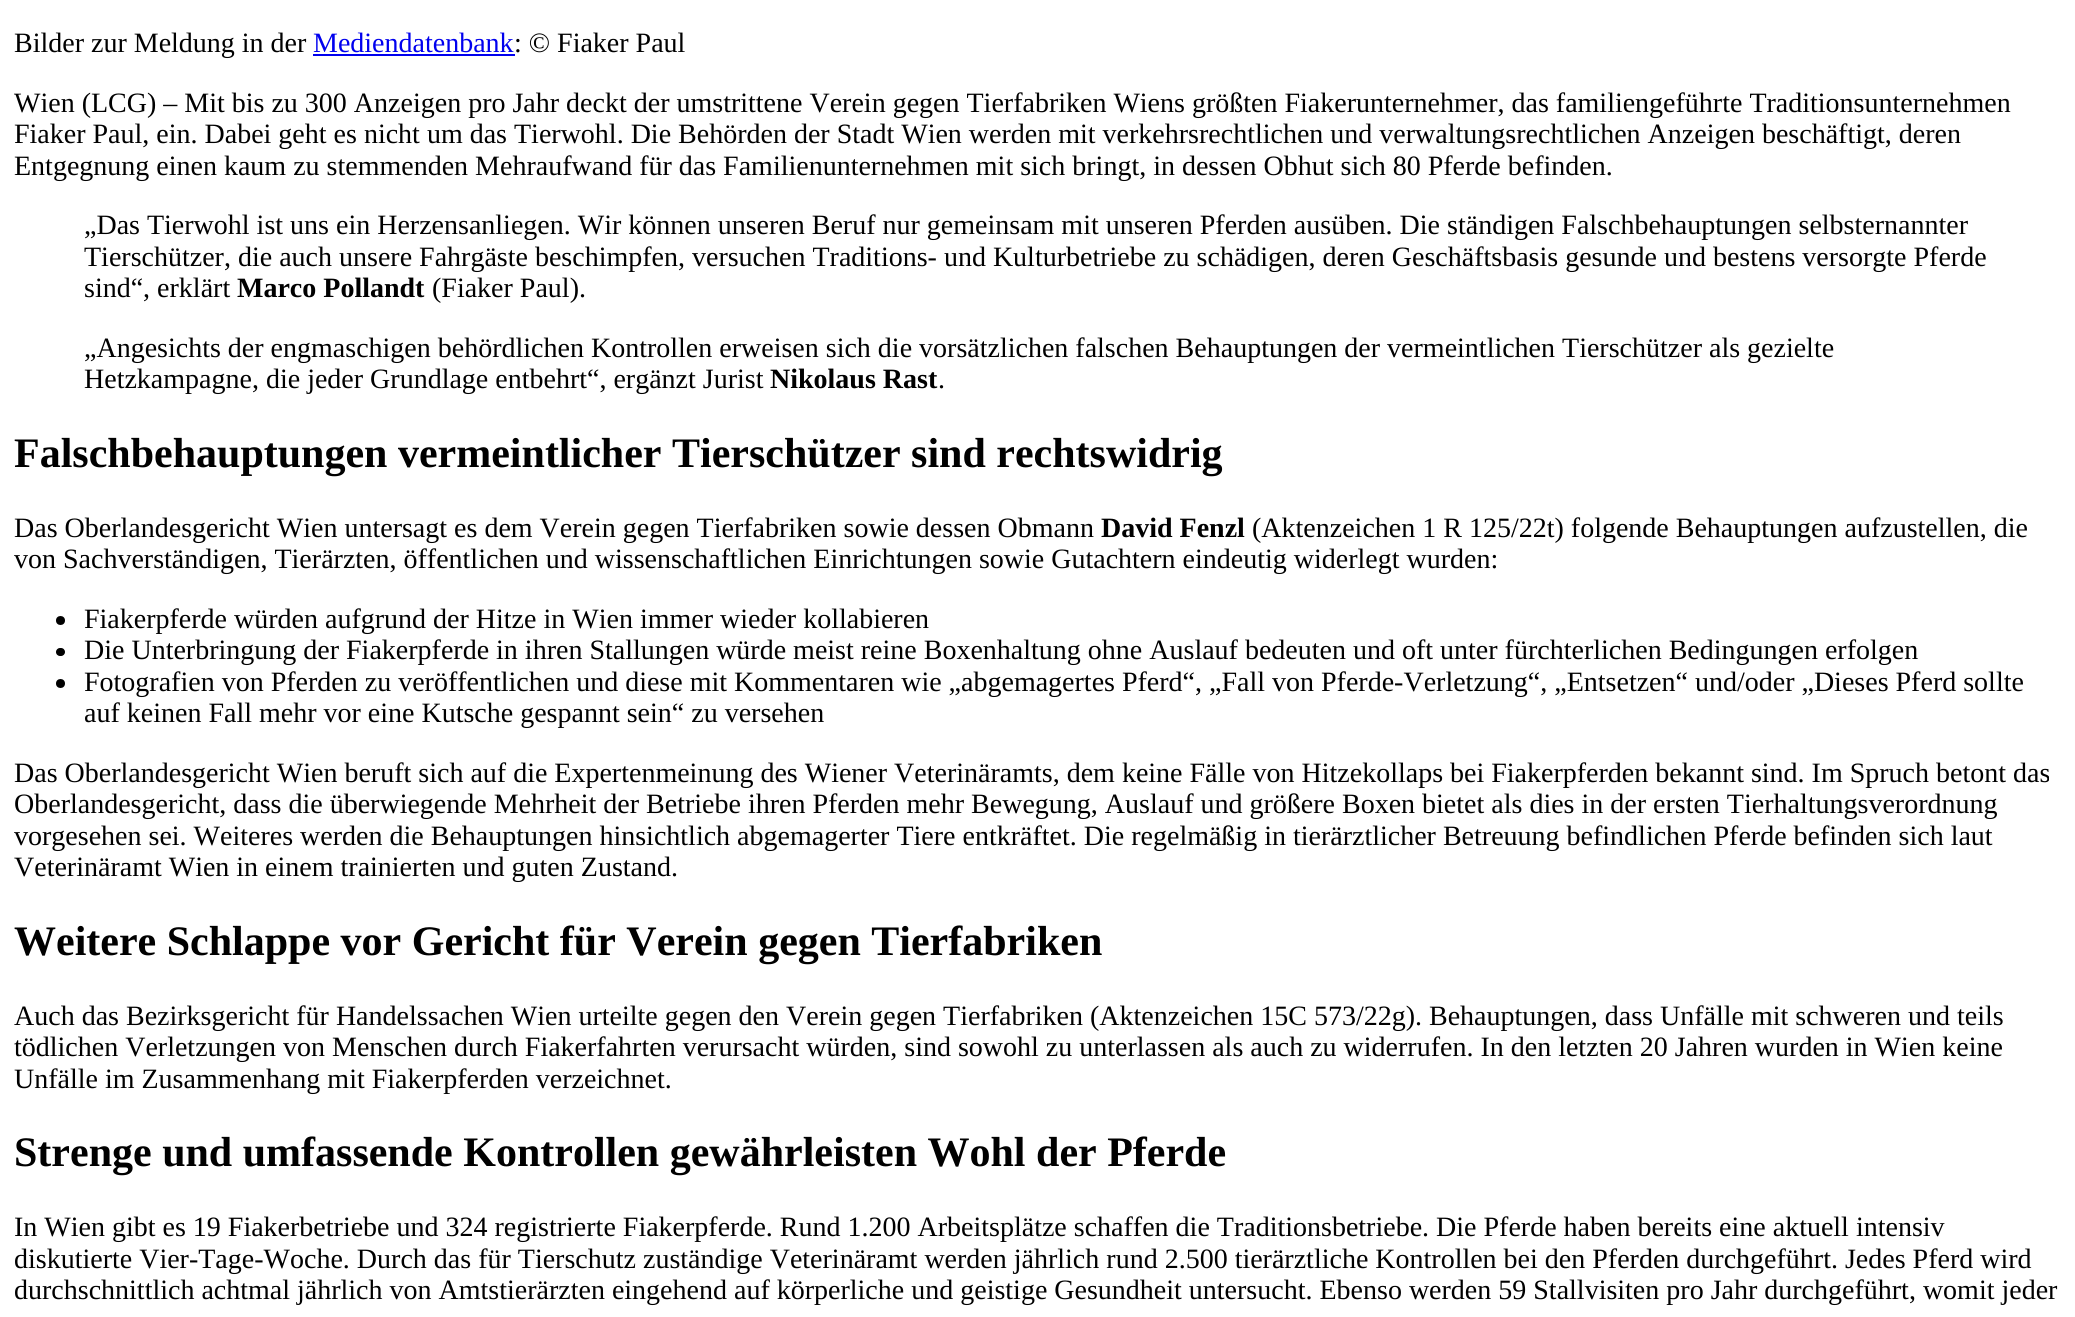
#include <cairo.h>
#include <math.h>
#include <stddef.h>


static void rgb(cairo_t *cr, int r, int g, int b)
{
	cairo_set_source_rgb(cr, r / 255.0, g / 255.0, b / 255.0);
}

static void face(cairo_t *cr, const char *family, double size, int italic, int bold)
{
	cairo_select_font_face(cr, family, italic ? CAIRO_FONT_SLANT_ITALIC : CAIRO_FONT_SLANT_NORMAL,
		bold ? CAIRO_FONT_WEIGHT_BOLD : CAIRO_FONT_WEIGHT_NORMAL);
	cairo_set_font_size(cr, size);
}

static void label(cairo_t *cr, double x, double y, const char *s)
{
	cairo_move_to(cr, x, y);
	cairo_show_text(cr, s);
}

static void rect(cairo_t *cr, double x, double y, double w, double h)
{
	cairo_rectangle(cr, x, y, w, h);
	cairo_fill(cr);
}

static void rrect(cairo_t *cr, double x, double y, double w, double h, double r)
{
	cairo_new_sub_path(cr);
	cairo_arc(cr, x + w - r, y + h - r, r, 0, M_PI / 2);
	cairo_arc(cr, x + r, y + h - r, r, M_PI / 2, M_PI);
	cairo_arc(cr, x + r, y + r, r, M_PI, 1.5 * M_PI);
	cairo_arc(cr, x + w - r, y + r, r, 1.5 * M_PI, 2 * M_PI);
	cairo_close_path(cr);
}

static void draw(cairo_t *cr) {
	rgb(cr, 255, 255, 255);
	cairo_paint(cr);
	face(cr, "Liberation Serif", 28, 0, 0);
	rgb(cr, 0, 0, 0);
	label(cr, 14, 52, "Bilder zur Meldung in der");
	rgb(cr, 0, 0, 238);
	label(cr, 313, 52, "Mediendatenbank");
	rect(cr, 313, 54, 202, 2);
	rgb(cr, 0, 0, 0);
	label(cr, 514, 52, ": © Fiaker Paul");
	label(cr, 14, 112, "Wien (LCG) – Mit bis zu 300 Anzeigen pro Jahr deckt der umstrittene Verein gegen Tierfabriken Wiens größten Fiakerunternehmer, das familiengeführte Traditionsunternehmen");
	label(cr, 14, 143, "Fiaker Paul, ein. Dabei geht es nicht um das Tierwohl. Die Behörden der Stadt Wien werden mit verkehrsrechtlichen und verwaltungsrechtlichen Anzeigen beschäftigt, deren");
	label(cr, 14, 175, "Entgegnung einen kaum zu stemmenden Mehraufwand für das Familienunternehmen mit sich bringt, in dessen Obhut sich 80 Pferde befinden.");
	label(cr, 84, 234, "„Das Tierwohl ist uns ein Herzensanliegen. Wir können unseren Beruf nur gemeinsam mit unseren Pferden ausüben. Die ständigen Falschbehauptungen selbsternannter");
	label(cr, 84, 266, "Tierschützer, die auch unsere Fahrgäste beschimpfen, versuchen Traditions- und Kulturbetriebe zu schädigen, deren Geschäftsbasis gesunde und bestens versorgte Pferde");
	label(cr, 84, 297, "sind“, erklärt");
	face(cr, "Liberation Serif", 28, 0, 1);
	label(cr, 237, 297, "Marco Pollandt");
	face(cr, "Liberation Serif", 28, 0, 0);
	label(cr, 432, 297, "(Fiaker Paul).");
	label(cr, 84, 357, "„Angesichts der engmaschigen behördlichen Kontrollen erweisen sich die vorsätzlichen falschen Behauptungen der vermeintlichen Tierschützer als gezielte");
	label(cr, 84, 388, "Hetzkampagne, die jeder Grundlage entbehrt“, ergänzt Jurist");
	face(cr, "Liberation Serif", 28, 0, 1);
	label(cr, 770, 388, "Nikolaus Rast");
	face(cr, "Liberation Serif", 28, 0, 0);
	label(cr, 938, 388, ".");
	face(cr, "Liberation Serif", 42, 0, 1);
	label(cr, 14, 467, "Falschbehauptungen vermeintlicher Tierschützer sind rechtswidrig");
	face(cr, "Liberation Serif", 28, 0, 0);
	label(cr, 14, 537, "Das Oberlandesgericht Wien untersagt es dem Verein gegen Tierfabriken sowie dessen Obmann");
	face(cr, "Liberation Serif", 28, 0, 1);
	label(cr, 1101, 537, "David Fenzl");
	face(cr, "Liberation Serif", 28, 0, 0);
	label(cr, 1252, 537, "(Aktenzeichen 1 R 125/22t) folgende Behauptungen aufzustellen, die");
	label(cr, 14, 568, "von Sachverständigen, Tierärzten, öffentlichen und wissenschaftlichen Einrichtungen sowie Gutachtern eindeutig widerlegt wurden:");
	cairo_new_path(cr);
	cairo_arc(cr, 60.5, 620.5, 4.5, 0, 2 * M_PI);
	cairo_fill(cr);
	label(cr, 84, 628, "Fiakerpferde würden aufgrund der Hitze in Wien immer wieder kollabieren");
	rrect(cr, 56, 648, 9, 8, 4);
	cairo_fill(cr);
	label(cr, 84, 659, "Die Unterbringung der Fiakerpferde in ihren Stallungen würde meist reine Boxenhaltung ohne Auslauf bedeuten und oft unter fürchterlichen Bedingungen erfolgen");
	cairo_new_path(cr);
	cairo_arc(cr, 60.5, 683.5, 4.5, 0, 2 * M_PI);
	cairo_fill(cr);
	label(cr, 84, 691, "Fotografien von Pferden zu veröffentlichen und diese mit Kommentaren wie „abgemagertes Pferd“, „Fall von Pferde-Verletzung“, „Entsetzen“ und/oder „Dieses Pferd sollte");
	label(cr, 84, 722, "auf keinen Fall mehr vor eine Kutsche gespannt sein“ zu versehen");
	label(cr, 14, 782, "Das Oberlandesgericht Wien beruft sich auf die Expertenmeinung des Wiener Veterinäramts, dem keine Fälle von Hitzekollaps bei Fiakerpferden bekannt sind. Im Spruch betont das");
	label(cr, 14, 813, "Oberlandesgericht, dass die überwiegende Mehrheit der Betriebe ihren Pferden mehr Bewegung, Auslauf und größere Boxen bietet als dies in der ersten Tierhaltungsverordnung");
	label(cr, 14, 845, "vorgesehen sei. Weiteres werden die Behauptungen hinsichtlich abgemagerter Tiere entkräftet. Die regelmäßig in tierärztlicher Betreuung befindlichen Pferde befinden sich laut");
	label(cr, 14, 876, "Veterinäramt Wien in einem trainierten und guten Zustand.");
	face(cr, "Liberation Serif", 42, 0, 1);
	label(cr, 14, 955, "Weitere Schlappe vor Gericht für Verein gegen Tierfabriken");
	face(cr, "Liberation Serif", 28, 0, 0);
	label(cr, 14, 1025, "Auch das Bezirksgericht für Handelssachen Wien urteilte gegen den Verein gegen Tierfabriken (Aktenzeichen 15C 573/22g). Behauptungen, dass Unfälle mit schweren und teils");
	label(cr, 14, 1056, "tödlichen Verletzungen von Menschen durch Fiakerfahrten verursacht würden, sind sowohl zu unterlassen als auch zu widerrufen. In den letzten 20 Jahren wurden in Wien keine");
	label(cr, 14, 1088, "Unfälle im Zusammenhang mit Fiakerpferden verzeichnet.");
	face(cr, "Liberation Serif", 42, 0, 1);
	label(cr, 14, 1166, "Strenge und umfassende Kontrollen gewährleisten Wohl der Pferde");
	face(cr, "Liberation Serif", 28, 0, 0);
	label(cr, 14, 1236, "In Wien gibt es 19 Fiakerbetriebe und 324 registrierte Fiakerpferde. Rund 1.200 Arbeitsplätze schaffen die Traditionsbetriebe. Die Pferde haben bereits eine aktuell intensiv");
	label(cr, 14, 1268, "diskutierte Vier-Tage-Woche. Durch das für Tierschutz zuständige Veterinäramt werden jährlich rund 2.500 tierärztliche Kontrollen bei den Pferden durchgeführt. Jedes Pferd wird");
	label(cr, 14, 1299, "durchschnittlich achtmal jährlich von Amtstierärzten eingehend auf körperliche und geistige Gesundheit untersucht. Ebenso werden 59 Stallvisiten pro Jahr durchgeführt, womit jeder");
}

int main(void) {
	cairo_surface_t *surface = cairo_image_surface_create(CAIRO_FORMAT_RGB24, 2075, 1317);
	cairo_t *cr = cairo_create(surface);
	cairo_font_options_t *options = cairo_font_options_create();
	cairo_font_options_set_hint_metrics(options, CAIRO_HINT_METRICS_OFF);
	cairo_font_options_set_hint_style(options, CAIRO_HINT_STYLE_NONE);
	cairo_set_font_options(cr, options);
	cairo_set_miter_limit(cr, 4);
	draw(cr);
	cairo_surface_write_to_png(surface, "render.png");
	cairo_font_options_destroy(options);
	cairo_destroy(cr);
	cairo_surface_destroy(surface);
	return 0;
}
